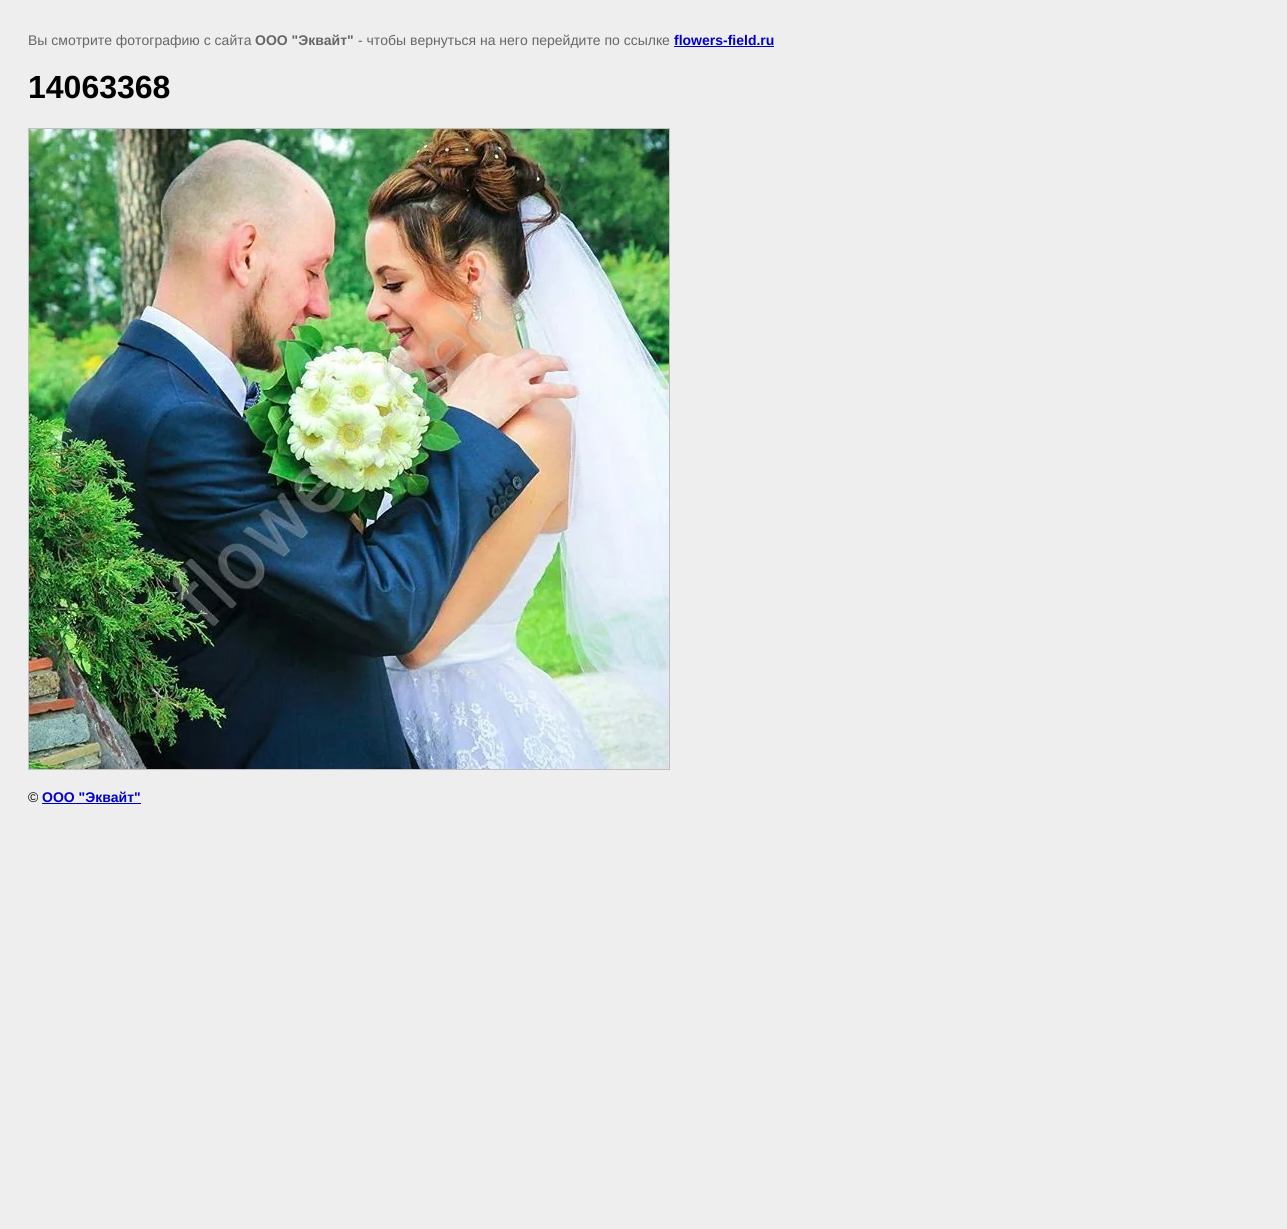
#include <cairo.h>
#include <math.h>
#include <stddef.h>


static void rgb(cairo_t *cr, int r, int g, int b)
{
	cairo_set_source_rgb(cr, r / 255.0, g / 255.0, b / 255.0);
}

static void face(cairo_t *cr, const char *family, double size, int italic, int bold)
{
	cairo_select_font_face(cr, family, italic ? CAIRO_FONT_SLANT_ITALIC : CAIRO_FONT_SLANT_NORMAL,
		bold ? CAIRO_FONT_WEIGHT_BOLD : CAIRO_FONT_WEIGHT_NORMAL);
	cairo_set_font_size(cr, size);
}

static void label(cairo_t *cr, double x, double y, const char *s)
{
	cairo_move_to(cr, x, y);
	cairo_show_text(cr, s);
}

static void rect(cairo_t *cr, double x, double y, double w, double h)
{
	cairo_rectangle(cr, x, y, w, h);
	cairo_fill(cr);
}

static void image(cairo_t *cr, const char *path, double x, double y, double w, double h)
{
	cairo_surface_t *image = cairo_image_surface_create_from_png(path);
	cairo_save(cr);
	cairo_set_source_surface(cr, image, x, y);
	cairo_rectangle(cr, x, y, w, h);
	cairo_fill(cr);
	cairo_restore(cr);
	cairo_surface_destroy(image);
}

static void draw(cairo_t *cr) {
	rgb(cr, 238, 238, 238);
	cairo_paint(cr);
	face(cr, "Liberation Sans", 14, 0, 0);
	rgb(cr, 102, 102, 102);
	label(cr, 28, 45, "Вы смотрите фотографию с сайта");
	face(cr, "Liberation Sans", 14, 0, 1);
	label(cr, 255, 45, "ООО \"Эквайт\"");
	face(cr, "Liberation Sans", 14, 0, 0);
	label(cr, 358, 45, "- чтобы вернуться на него перейдите по ссылке");
	face(cr, "Liberation Sans", 14, 0, 1);
	rgb(cr, 0, 0, 204);
	label(cr, 674, 45, "flowers-field.ru");
	rect(cr, 674, 46, 100, 1);
	face(cr, "Liberation Sans", 32, 0, 1);
	rgb(cr, 0, 0, 0);
	label(cr, 28, 98, "14063368");
	cairo_rectangle(cr, 28.5, 128.5, 641, 641);
	rgb(cr, 192, 192, 192);
	cairo_set_line_width(cr, 1);
	cairo_stroke(cr);
	image(cr, "image0.png", 29, 129, 640, 640);
	face(cr, "Liberation Sans", 14, 0, 0);
	rgb(cr, 0, 0, 0);
	label(cr, 28, 802, "©");
	face(cr, "Liberation Sans", 14, 0, 1);
	rgb(cr, 0, 0, 204);
	label(cr, 42, 802, "ООО \"Эквайт\"");
	rect(cr, 42, 803, 99, 1);
}

int main(void) {
	cairo_surface_t *surface = cairo_image_surface_create(CAIRO_FORMAT_RGB24, 1287, 1229);
	cairo_t *cr = cairo_create(surface);
	cairo_font_options_t *options = cairo_font_options_create();
	cairo_font_options_set_hint_metrics(options, CAIRO_HINT_METRICS_OFF);
	cairo_font_options_set_hint_style(options, CAIRO_HINT_STYLE_NONE);
	cairo_set_font_options(cr, options);
	cairo_set_miter_limit(cr, 4);
	draw(cr);
	cairo_surface_write_to_png(surface, "render.png");
	cairo_font_options_destroy(options);
	cairo_destroy(cr);
	cairo_surface_destroy(surface);
	return 0;
}
